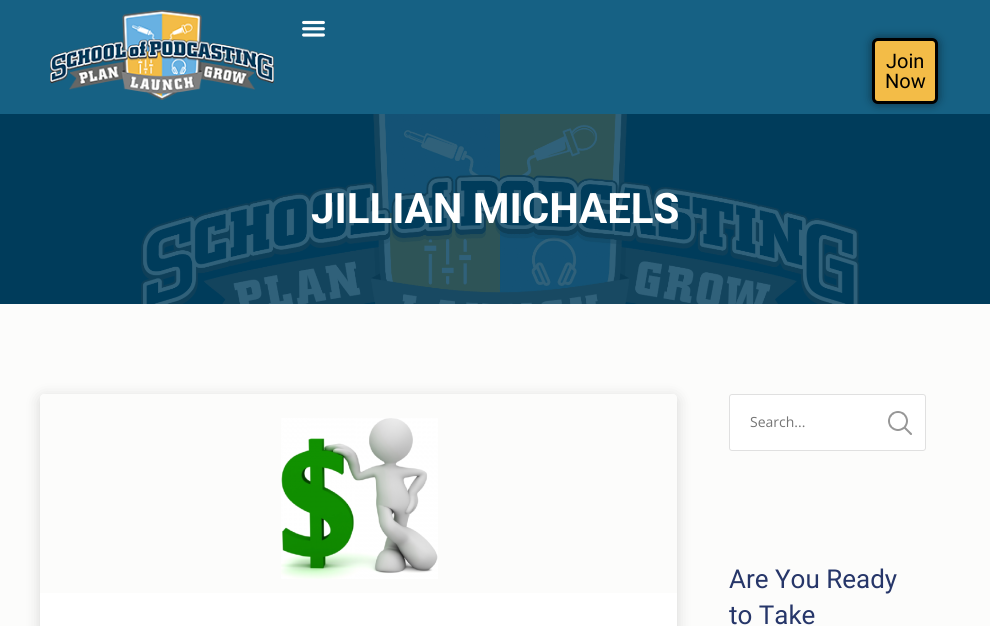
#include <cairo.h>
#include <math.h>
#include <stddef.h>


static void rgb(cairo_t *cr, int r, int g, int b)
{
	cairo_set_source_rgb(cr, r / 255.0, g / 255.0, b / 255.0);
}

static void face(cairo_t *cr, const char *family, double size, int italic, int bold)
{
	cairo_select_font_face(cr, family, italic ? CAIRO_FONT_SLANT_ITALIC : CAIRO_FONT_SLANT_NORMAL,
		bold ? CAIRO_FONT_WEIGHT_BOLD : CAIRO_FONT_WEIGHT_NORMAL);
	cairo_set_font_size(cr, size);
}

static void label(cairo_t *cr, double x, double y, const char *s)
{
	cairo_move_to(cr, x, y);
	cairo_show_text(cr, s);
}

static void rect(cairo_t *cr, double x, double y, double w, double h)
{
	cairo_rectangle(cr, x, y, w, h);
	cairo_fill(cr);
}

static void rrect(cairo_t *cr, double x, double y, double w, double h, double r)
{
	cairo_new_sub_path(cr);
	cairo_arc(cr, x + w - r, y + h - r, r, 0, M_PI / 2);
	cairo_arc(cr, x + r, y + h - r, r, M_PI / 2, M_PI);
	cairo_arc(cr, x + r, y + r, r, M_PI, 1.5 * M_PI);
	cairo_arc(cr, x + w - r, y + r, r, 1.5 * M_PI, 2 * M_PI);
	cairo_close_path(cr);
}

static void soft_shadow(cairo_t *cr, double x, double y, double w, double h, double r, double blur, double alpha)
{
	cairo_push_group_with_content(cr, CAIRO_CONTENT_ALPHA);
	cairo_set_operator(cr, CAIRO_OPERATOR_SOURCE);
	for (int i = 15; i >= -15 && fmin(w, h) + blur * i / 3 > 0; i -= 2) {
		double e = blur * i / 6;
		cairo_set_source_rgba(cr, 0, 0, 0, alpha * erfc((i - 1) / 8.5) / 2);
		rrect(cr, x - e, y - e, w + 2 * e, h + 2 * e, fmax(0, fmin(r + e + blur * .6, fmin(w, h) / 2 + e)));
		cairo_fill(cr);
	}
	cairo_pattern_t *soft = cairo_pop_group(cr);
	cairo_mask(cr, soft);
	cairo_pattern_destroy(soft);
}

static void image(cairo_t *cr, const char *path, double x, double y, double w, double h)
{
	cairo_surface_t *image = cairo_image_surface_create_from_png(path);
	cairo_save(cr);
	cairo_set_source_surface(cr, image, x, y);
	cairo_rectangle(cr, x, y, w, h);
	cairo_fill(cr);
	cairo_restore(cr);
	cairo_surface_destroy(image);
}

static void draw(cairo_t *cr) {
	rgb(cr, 252, 252, 251);
	cairo_paint(cr);
	rgb(cr, 22, 97, 132);
	rect(cr, 0, 0, 990, 114);
	image(cr, "image0.png", 50, 10, 224, 90);
	image(cr, "image1.png", 302, 20, 23, 17);
	rgb(cr, 0, 0, 0);
	soft_shadow(cr, 872, 38, 66, 66, 6, 5, 0.5);
	rgb(cr, 243, 188, 71);
	rrect(cr, 873.5, 39.5, 63, 63, 4.5);
	cairo_fill_preserve(cr);
	rgb(cr, 0, 0, 0);
	cairo_set_line_width(cr, 3);
	cairo_stroke(cr);
	face(cr, "Roboto", 20, 0, 0);
	label(cr, 886, 68, "Join");
	label(cr, 885, 88, "Now");
	rgb(cr, 0, 60, 91);
	rect(cr, 0, 114, 990, 190);
	image(cr, "image2.png", 141, 114, 719, 190);
	face(cr, "Roboto", 42, 0, 1);
	rgb(cr, 255, 255, 255);
	label(cr, 311, 223, "JILLIAN MICHAELS");
	cairo_save(cr);
	cairo_set_fill_rule(cr, CAIRO_FILL_RULE_EVEN_ODD);
	cairo_new_path(cr);
	cairo_move_to(cr, 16, 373);
	cairo_line_to(cr, 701, 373);
	cairo_line_to(cr, 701, 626);
	cairo_line_to(cr, 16, 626);
	cairo_close_path(cr);
	cairo_move_to(cr, 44, 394);
	cairo_line_to(cr, 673, 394);
	cairo_curve_to(cr, 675, 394, 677, 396, 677, 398);
	cairo_line_to(cr, 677, 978);
	cairo_curve_to(cr, 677, 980, 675, 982, 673, 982);
	cairo_line_to(cr, 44, 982);
	cairo_curve_to(cr, 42, 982, 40, 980, 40, 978);
	cairo_line_to(cr, 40, 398);
	cairo_curve_to(cr, 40, 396, 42, 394, 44, 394);
	cairo_close_path(cr);
	cairo_clip(cr);
	rgb(cr, 0, 0, 0);
	soft_shadow(cr, 40, 397, 637, 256, 4, 7.5, 0.15);
	cairo_restore(cr);
	image(cr, "image3.png", 281, 418, 157, 161);
	rect(cr, 40, 593, 637, 33);
	rrect(cr, 729, 394, 197, 57, 3);
	cairo_fill(cr);
	image(cr, "image4.png", 888, 411, 24, 24);
	rrect(cr, 729.5, 394.5, 196, 56, 2.5);
	rgb(cr, 224, 224, 224);
	cairo_set_line_width(cr, 1);
	cairo_stroke(cr);
	face(cr, "Open Sans", 14, 0, 0);
	rgb(cr, 117, 117, 117);
	label(cr, 750, 427, "Search...");
	face(cr, "Roboto", 26, 0, 0);
	rgb(cr, 38, 54, 105);
	label(cr, 729, 588, "Are You Ready");
	label(cr, 729, 624, "to Take");
}

int main(void) {
	cairo_surface_t *surface = cairo_image_surface_create(CAIRO_FORMAT_RGB24, 990, 626);
	cairo_t *cr = cairo_create(surface);
	cairo_font_options_t *options = cairo_font_options_create();
	cairo_font_options_set_hint_metrics(options, CAIRO_HINT_METRICS_OFF);
	cairo_font_options_set_hint_style(options, CAIRO_HINT_STYLE_NONE);
	cairo_set_font_options(cr, options);
	cairo_set_miter_limit(cr, 4);
	draw(cr);
	cairo_surface_write_to_png(surface, "render.png");
	cairo_font_options_destroy(options);
	cairo_destroy(cr);
	cairo_surface_destroy(surface);
	return 0;
}
